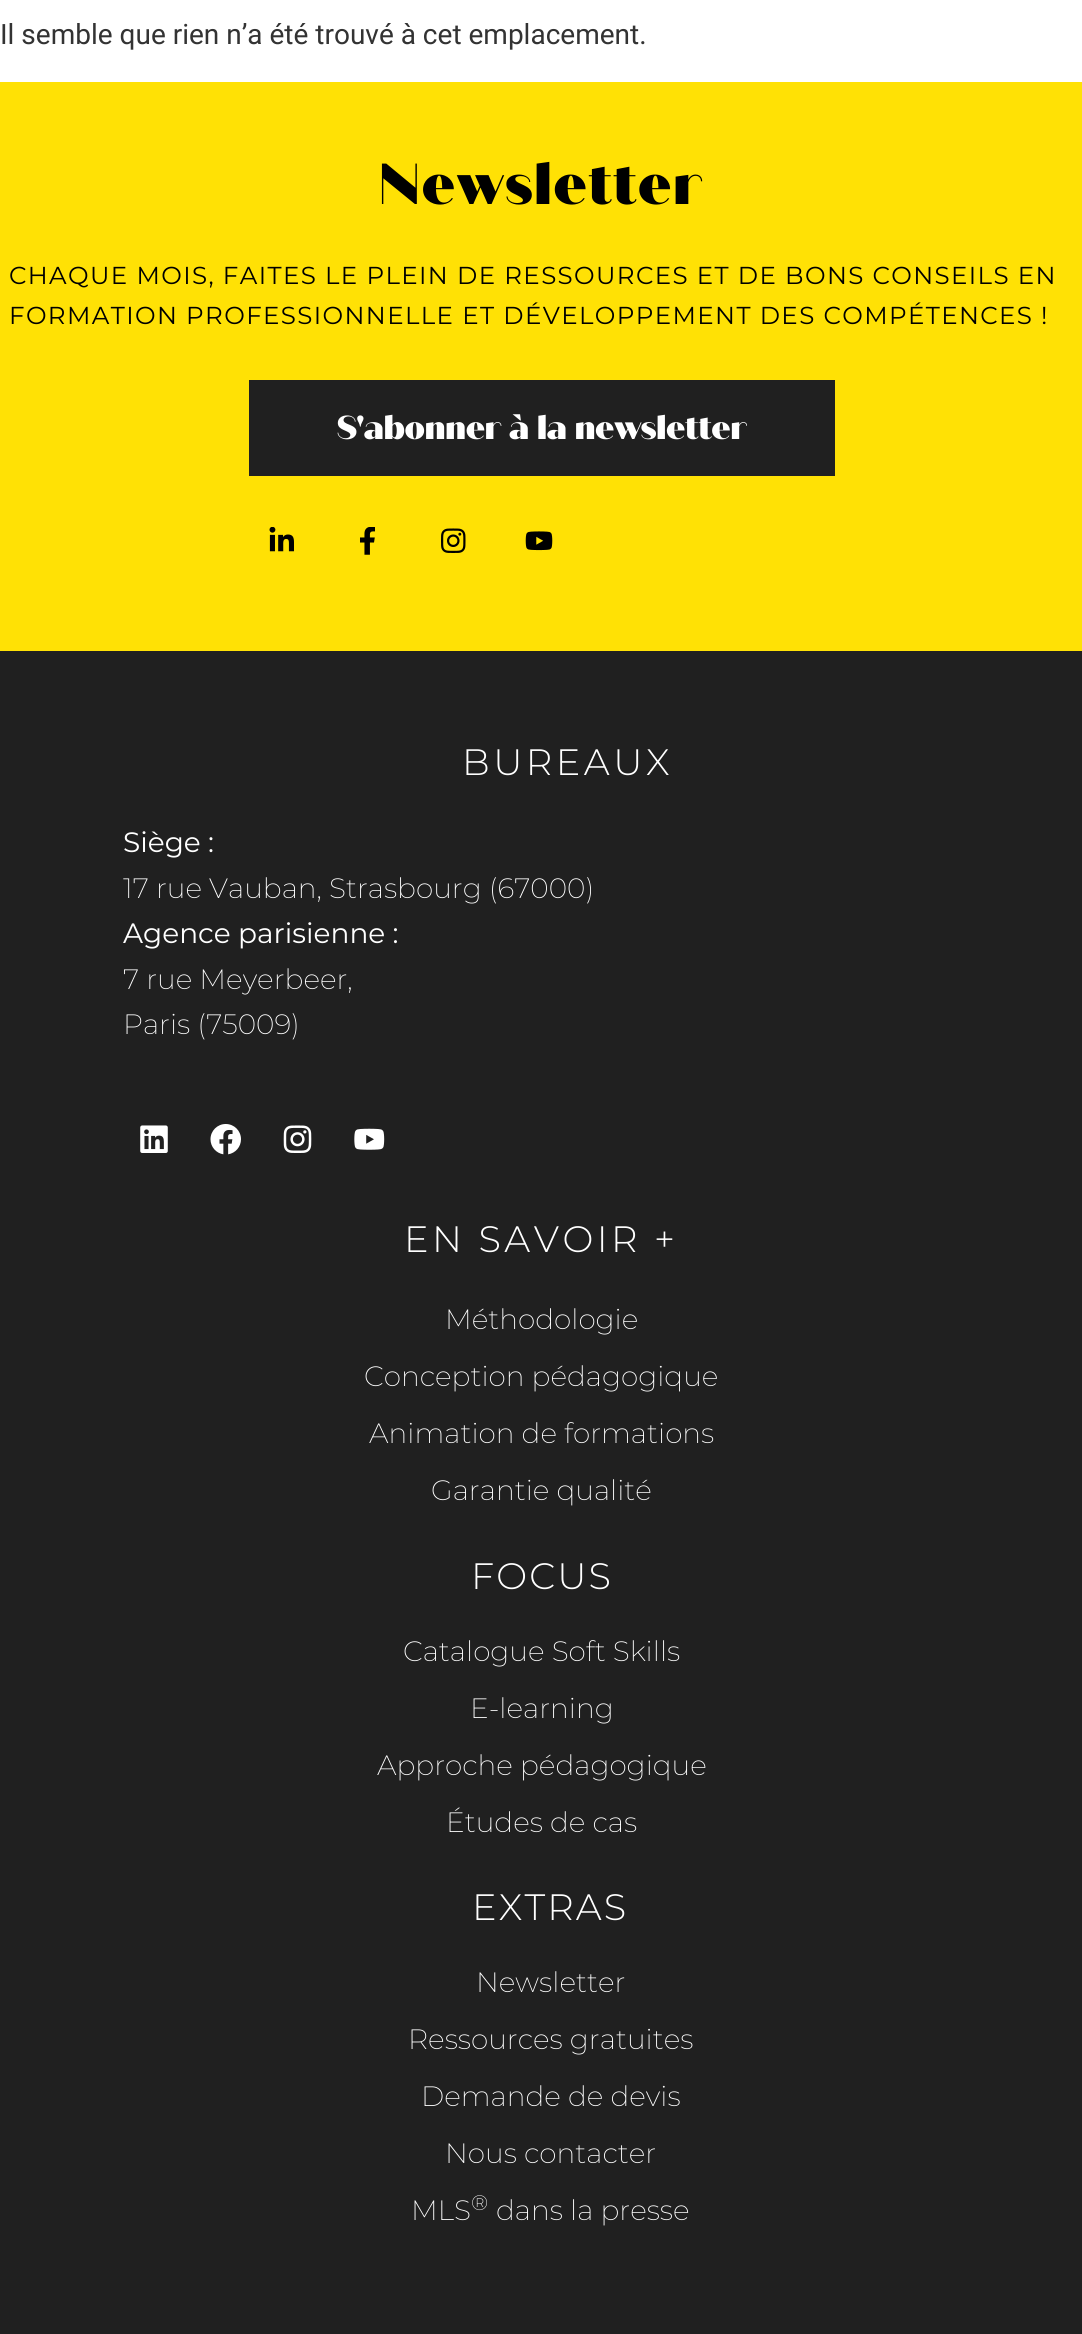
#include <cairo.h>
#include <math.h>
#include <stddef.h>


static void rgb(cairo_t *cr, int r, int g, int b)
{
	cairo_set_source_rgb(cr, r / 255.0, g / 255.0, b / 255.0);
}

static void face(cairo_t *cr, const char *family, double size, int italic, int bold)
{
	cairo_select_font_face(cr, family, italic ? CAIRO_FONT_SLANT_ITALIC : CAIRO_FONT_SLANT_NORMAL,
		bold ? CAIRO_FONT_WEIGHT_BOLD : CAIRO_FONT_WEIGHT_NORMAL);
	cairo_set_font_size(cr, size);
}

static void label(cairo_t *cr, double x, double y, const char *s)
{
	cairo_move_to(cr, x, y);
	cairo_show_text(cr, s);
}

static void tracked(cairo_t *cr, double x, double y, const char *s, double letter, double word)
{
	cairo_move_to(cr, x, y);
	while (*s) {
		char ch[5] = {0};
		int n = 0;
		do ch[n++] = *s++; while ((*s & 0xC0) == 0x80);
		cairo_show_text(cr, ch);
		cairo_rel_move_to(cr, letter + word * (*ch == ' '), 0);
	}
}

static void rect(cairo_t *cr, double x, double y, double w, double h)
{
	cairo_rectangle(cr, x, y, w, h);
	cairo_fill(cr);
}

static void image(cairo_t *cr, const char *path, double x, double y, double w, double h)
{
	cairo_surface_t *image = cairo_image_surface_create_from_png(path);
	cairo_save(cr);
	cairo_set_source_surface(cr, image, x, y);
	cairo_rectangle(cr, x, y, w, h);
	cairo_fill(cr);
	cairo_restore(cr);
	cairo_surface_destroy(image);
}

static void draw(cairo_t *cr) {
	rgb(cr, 255, 255, 255);
	cairo_paint(cr);
	face(cr, "Roboto", 28, 0, 0);
	rgb(cr, 51, 51, 51);
	label(cr, 0, 44, "Il semble que rien n’a été trouvé à cet emplacement.");
	rgb(cr, 255, 225, 5);
	rect(cr, 0, 82, 1082, 569);
	face(cr, "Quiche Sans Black", 57.75, 0, 0);
	rgb(cr, 0, 0, 0);
	tracked(cr, 379, 204, "Newsletter", 2.1, 0);
	face(cr, "Montserrat", 24.5, 0, 0);
	tracked(cr, 9, 284, "CHAQUE MOIS, FAITES LE PLEIN DE RESSOURCES ET DE BONS CONSEILS EN", 1.4, 0);
	tracked(cr, 9, 324, "FORMATION PROFESSIONNELLE ET DÉVELOPPEMENT DES COMPÉTENCES !", 1.4, 0);
	rgb(cr, 32, 32, 32);
	rect(cr, 249, 380, 586, 96);
	face(cr, "Quiche Sans Black", 33.25, 0, 0);
	rgb(cr, 255, 255, 255);
	label(cr, 337, 439, "S'abonner à la newsletter");
	image(cr, "image0.png", 269, 527, 25, 25);
	image(cr, "image1.png", 360, 527, 15, 28);
	image(cr, "image2.png", 441, 528, 25, 25);
	image(cr, "image3.png", 525, 531, 28, 20);
	rgb(cr, 32, 32, 32);
	rect(cr, 0, 651, 1082, 1683);
	face(cr, "Montserrat Light", 36.75, 0, 0);
	rgb(cr, 255, 255, 255);
	tracked(cr, 462, 775, "BUREAUX", 3.5, 0);
	face(cr, "Montserrat", 28, 0, 0);
	label(cr, 123, 852, "Siège :");
	face(cr, "Montserrat ExtraLight", 28, 0, 0);
	label(cr, 123, 898, "17 rue Vauban, Strasbourg (67000)");
	face(cr, "Montserrat", 28, 0, 0);
	label(cr, 123, 943, "Agence parisienne :");
	face(cr, "Montserrat ExtraLight", 28, 0, 0);
	label(cr, 123, 989, "7 rue Meyerbeer,");
	label(cr, 123, 1034, "Paris (75009)");
	image(cr, "image4.png", 140, 1125, 28, 28);
	image(cr, "image5.png", 210, 1124, 31, 31);
	image(cr, "image6.png", 283, 1125, 29, 28);
	image(cr, "image7.png", 354, 1128, 31, 22);
	face(cr, "Montserrat Light", 36.75, 0, 0);
	tracked(cr, 404, 1252, "EN SAVOIR +", 3.5, 0);
	face(cr, "Montserrat ExtraLight", 28, 0, 0);
	label(cr, 445, 1329, "Méthodologie");
	label(cr, 364, 1386, "Conception pédagogique");
	label(cr, 369, 1443, "Animation de formations");
	label(cr, 431, 1500, "Garantie qualité");
	face(cr, "Montserrat Light", 36.75, 0, 0);
	tracked(cr, 471, 1589, "FOCUS", 2.1, 0);
	face(cr, "Montserrat ExtraLight", 28, 0, 0);
	label(cr, 403, 1661, "Catalogue Soft Skills");
	label(cr, 470, 1718, "E-learning");
	label(cr, 377, 1775, "Approche pédagogique");
	label(cr, 446, 1832, "Études de cas");
	face(cr, "Montserrat Light", 36.75, 0, 0);
	tracked(cr, 472, 1920, "EXTRAS", 2.1, 0);
	face(cr, "Montserrat ExtraLight", 28, 0, 0);
	label(cr, 476, 1992, "Newsletter");
	label(cr, 408, 2049, "Ressources gratuites");
	label(cr, 421, 2106, "Demande de devis");
	label(cr, 445, 2163, "Nous contacter");
	label(cr, 411, 2220, "MLS");
	face(cr, "Montserrat ExtraLight", 21, 0, 0);
	label(cr, 471, 2210, "®");
	face(cr, "Montserrat ExtraLight", 28, 0, 0);
	label(cr, 496, 2220, "dans la presse");
}

int main(void) {
	cairo_surface_t *surface = cairo_image_surface_create(CAIRO_FORMAT_RGB24, 1082, 2334);
	cairo_t *cr = cairo_create(surface);
	cairo_font_options_t *options = cairo_font_options_create();
	cairo_font_options_set_hint_metrics(options, CAIRO_HINT_METRICS_OFF);
	cairo_font_options_set_hint_style(options, CAIRO_HINT_STYLE_NONE);
	cairo_set_font_options(cr, options);
	cairo_set_miter_limit(cr, 4);
	draw(cr);
	cairo_surface_write_to_png(surface, "render.png");
	cairo_font_options_destroy(options);
	cairo_destroy(cr);
	cairo_surface_destroy(surface);
	return 0;
}
